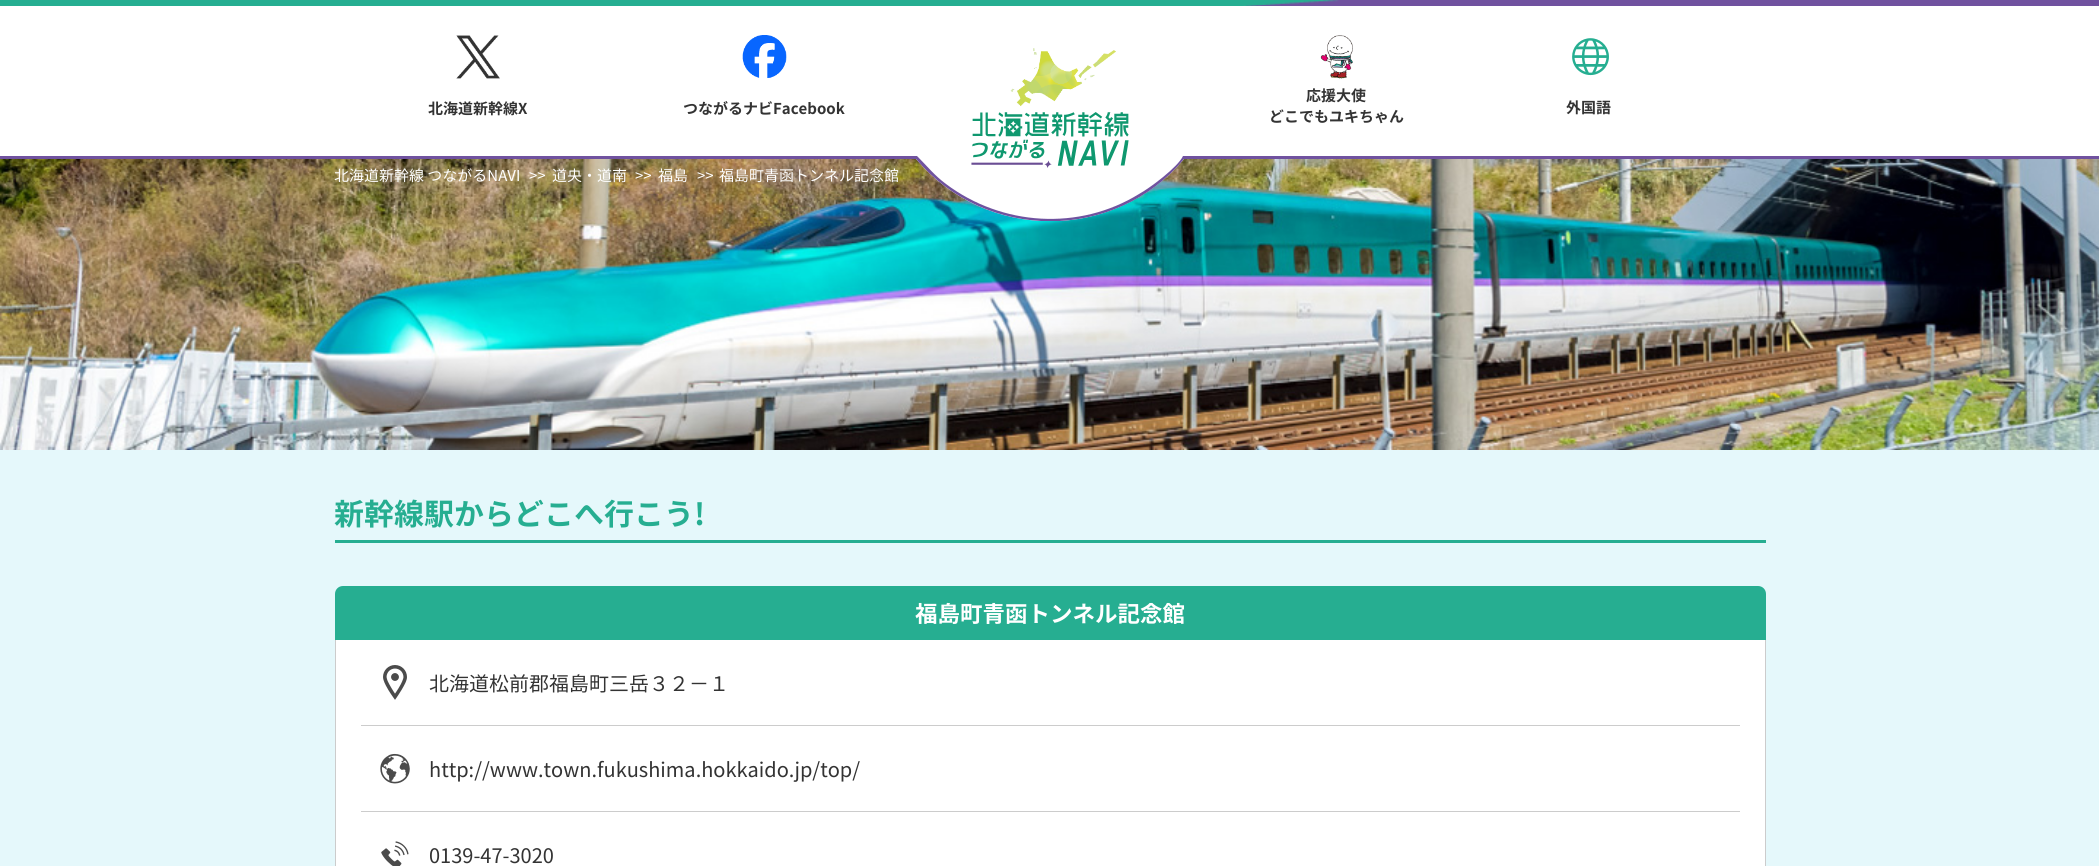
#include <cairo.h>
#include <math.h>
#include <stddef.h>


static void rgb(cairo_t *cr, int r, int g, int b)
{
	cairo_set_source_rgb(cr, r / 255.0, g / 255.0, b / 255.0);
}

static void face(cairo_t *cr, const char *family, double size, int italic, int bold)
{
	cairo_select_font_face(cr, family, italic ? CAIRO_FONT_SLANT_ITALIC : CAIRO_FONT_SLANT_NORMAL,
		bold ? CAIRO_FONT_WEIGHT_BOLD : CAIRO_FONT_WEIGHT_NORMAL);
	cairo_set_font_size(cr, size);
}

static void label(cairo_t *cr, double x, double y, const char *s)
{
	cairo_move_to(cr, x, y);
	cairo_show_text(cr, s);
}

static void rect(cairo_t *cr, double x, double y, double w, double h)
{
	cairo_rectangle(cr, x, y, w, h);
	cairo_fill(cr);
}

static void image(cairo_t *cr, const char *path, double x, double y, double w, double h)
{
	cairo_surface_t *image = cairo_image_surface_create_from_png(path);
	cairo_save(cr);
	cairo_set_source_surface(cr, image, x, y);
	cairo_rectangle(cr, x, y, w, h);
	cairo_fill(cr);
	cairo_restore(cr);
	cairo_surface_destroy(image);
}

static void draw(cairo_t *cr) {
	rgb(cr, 255, 255, 255);
	cairo_paint(cr);
	image(cr, "image0.png", 0, 0, 2099, 6);
	rgb(cr, 112, 82, 159);
	rect(cr, 0, 156, 2099, 3);
	rgb(cr, 255, 255, 255);
	rect(cr, 916, 156, 269, 3);
	image(cr, "image6.png", 0, 159, 2099, 291);
	cairo_save(cr);
	cairo_rectangle(cr, 916, 156, 269, 65);
	cairo_clip(cr);
	cairo_new_path(cr);
	cairo_move_to(cr, 916, 159);
	cairo_curve_to(cr, 986, 242, 1114, 242, 1184, 159);
	cairo_line_to(cr, 1183, 159);
	cairo_line_to(cr, 1189, 159);
	cairo_line_to(cr, 1189, 156);
	cairo_fill(cr);
	rgb(cr, 112, 82, 159);
	cairo_new_path(cr);
	cairo_move_to(cr, 1185, 156);
	cairo_line_to(cr, 1183, 156);
	cairo_curve_to(cr, 1178, 167, 1150, 188, 1139, 194);
	cairo_curve_to(cr, 1079, 231, 1002, 226, 946, 184);
	cairo_curve_to(cr, 934, 175, 928, 167, 917, 156);
	cairo_line_to(cr, 915, 156);
	cairo_line_to(cr, 915, 159);
	cairo_line_to(cr, 916, 159);
	cairo_curve_to(cr, 986, 242, 1115, 242, 1184, 159);
	cairo_fill(cr);
	cairo_restore(cr);
	image(cr, "image1.png", 971, 48, 158, 120);
	image(cr, "image2.png", 456, 35, 44, 44);
	face(cr, "Noto Sans JP", 15, 0, 1);
	rgb(cr, 51, 51, 51);
	label(cr, 428, 114, "北海道新幹線X");
	image(cr, "image3.png", 742, 35, 45, 43);
	label(cr, 683, 114, "つながるナビFacebook");
	image(cr, "image4.png", 1320, 35, 33, 44);
	label(cr, 1306, 101, "応援大使");
	label(cr, 1269, 122, "どこでもユキちゃん");
	image(cr, "image5.png", 1572, 38, 37, 38);
	label(cr, 1566, 113, "外国語");
	rgb(cr, 112, 82, 159);
	rect(cr, 1184, 156, 1, 3);
	face(cr, "Noto Sans JP", 15, 0, 0);
	rgb(cr, 255, 255, 255);
	label(cr, 334, 181, "北海道新幹線 つながるNAVI");
	label(cr, 529, 181, ">>");
	label(cr, 552, 181, "道央・道南");
	label(cr, 635, 181, ">>");
	label(cr, 658, 181, "福島");
	label(cr, 697, 181, ">>");
	label(cr, 719, 181, "福島町青函トンネル記念館");
	rgb(cr, 229, 248, 251);
	rect(cr, 0, 450, 2099, 416);
	rgb(cr, 38, 174, 145);
	rect(cr, 335, 540, 1431, 3);
	face(cr, "Noto Sans JP", 30, 0, 1);
	label(cr, 334, 525, "新幹線駅からどこへ行こう!");
	cairo_new_path(cr);
	cairo_move_to(cr, 343, 586);
	cairo_line_to(cr, 1758, 586);
	cairo_curve_to(cr, 1762.5, 586, 1766, 589.5, 1766, 594);
	cairo_line_to(cr, 1766, 640);
	cairo_line_to(cr, 335, 640);
	cairo_line_to(cr, 335, 594);
	cairo_curve_to(cr, 335, 589.5, 338.5, 586, 343, 586);
	cairo_close_path(cr);
	cairo_fill(cr);
	face(cr, "Noto Sans JP", 22.5, 0, 1);
	rgb(cr, 255, 255, 255);
	label(cr, 915, 622, "福島町青函トンネル記念館");
	rect(cr, 336, 640, 1429, 226);
	rgb(cr, 204, 204, 204);
	cairo_set_fill_rule(cr, CAIRO_FILL_RULE_EVEN_ODD);
	cairo_new_path(cr);
	cairo_move_to(cr, 335, 640);
	cairo_line_to(cr, 1766, 640);
	cairo_line_to(cr, 1766, 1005);
	cairo_curve_to(cr, 1766, 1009, 1763, 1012, 1759, 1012);
	cairo_line_to(cr, 342, 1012);
	cairo_curve_to(cr, 338, 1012, 335, 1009, 335, 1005);
	cairo_close_path(cr);
	cairo_move_to(cr, 336, 640);
	cairo_line_to(cr, 1765, 640);
	cairo_line_to(cr, 1765, 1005);
	cairo_curve_to(cr, 1765, 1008, 1762, 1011, 1759, 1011);
	cairo_line_to(cr, 342, 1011);
	cairo_curve_to(cr, 339, 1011, 336, 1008, 336, 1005);
	cairo_close_path(cr);
	cairo_fill(cr);
	rect(cr, 361, 725, 1379, 1);
	image(cr, "image7.png", 383, 665, 24, 35);
	face(cr, "Noto Sans JP", 20, 0, 0);
	rgb(cr, 51, 51, 51);
	label(cr, 429, 691, "北海道松前郡福島町三岳３２−１");
	rgb(cr, 204, 204, 204);
	rect(cr, 361, 811, 1379, 1);
	image(cr, "image8.png", 380, 753, 30, 31);
	rgb(cr, 51, 51, 51);
	label(cr, 429, 777, "http://www.town.fukushima.hokkaido.jp/top/");
	image(cr, "image9.png", 381, 841, 28, 25);
	label(cr, 429, 863, "0139-47-3020");
}

int main(void) {
	cairo_surface_t *surface = cairo_image_surface_create(CAIRO_FORMAT_RGB24, 2099, 866);
	cairo_t *cr = cairo_create(surface);
	cairo_font_options_t *options = cairo_font_options_create();
	cairo_font_options_set_hint_metrics(options, CAIRO_HINT_METRICS_OFF);
	cairo_font_options_set_hint_style(options, CAIRO_HINT_STYLE_NONE);
	cairo_set_font_options(cr, options);
	cairo_set_miter_limit(cr, 4);
	draw(cr);
	cairo_surface_write_to_png(surface, "render.png");
	cairo_font_options_destroy(options);
	cairo_destroy(cr);
	cairo_surface_destroy(surface);
	return 0;
}
